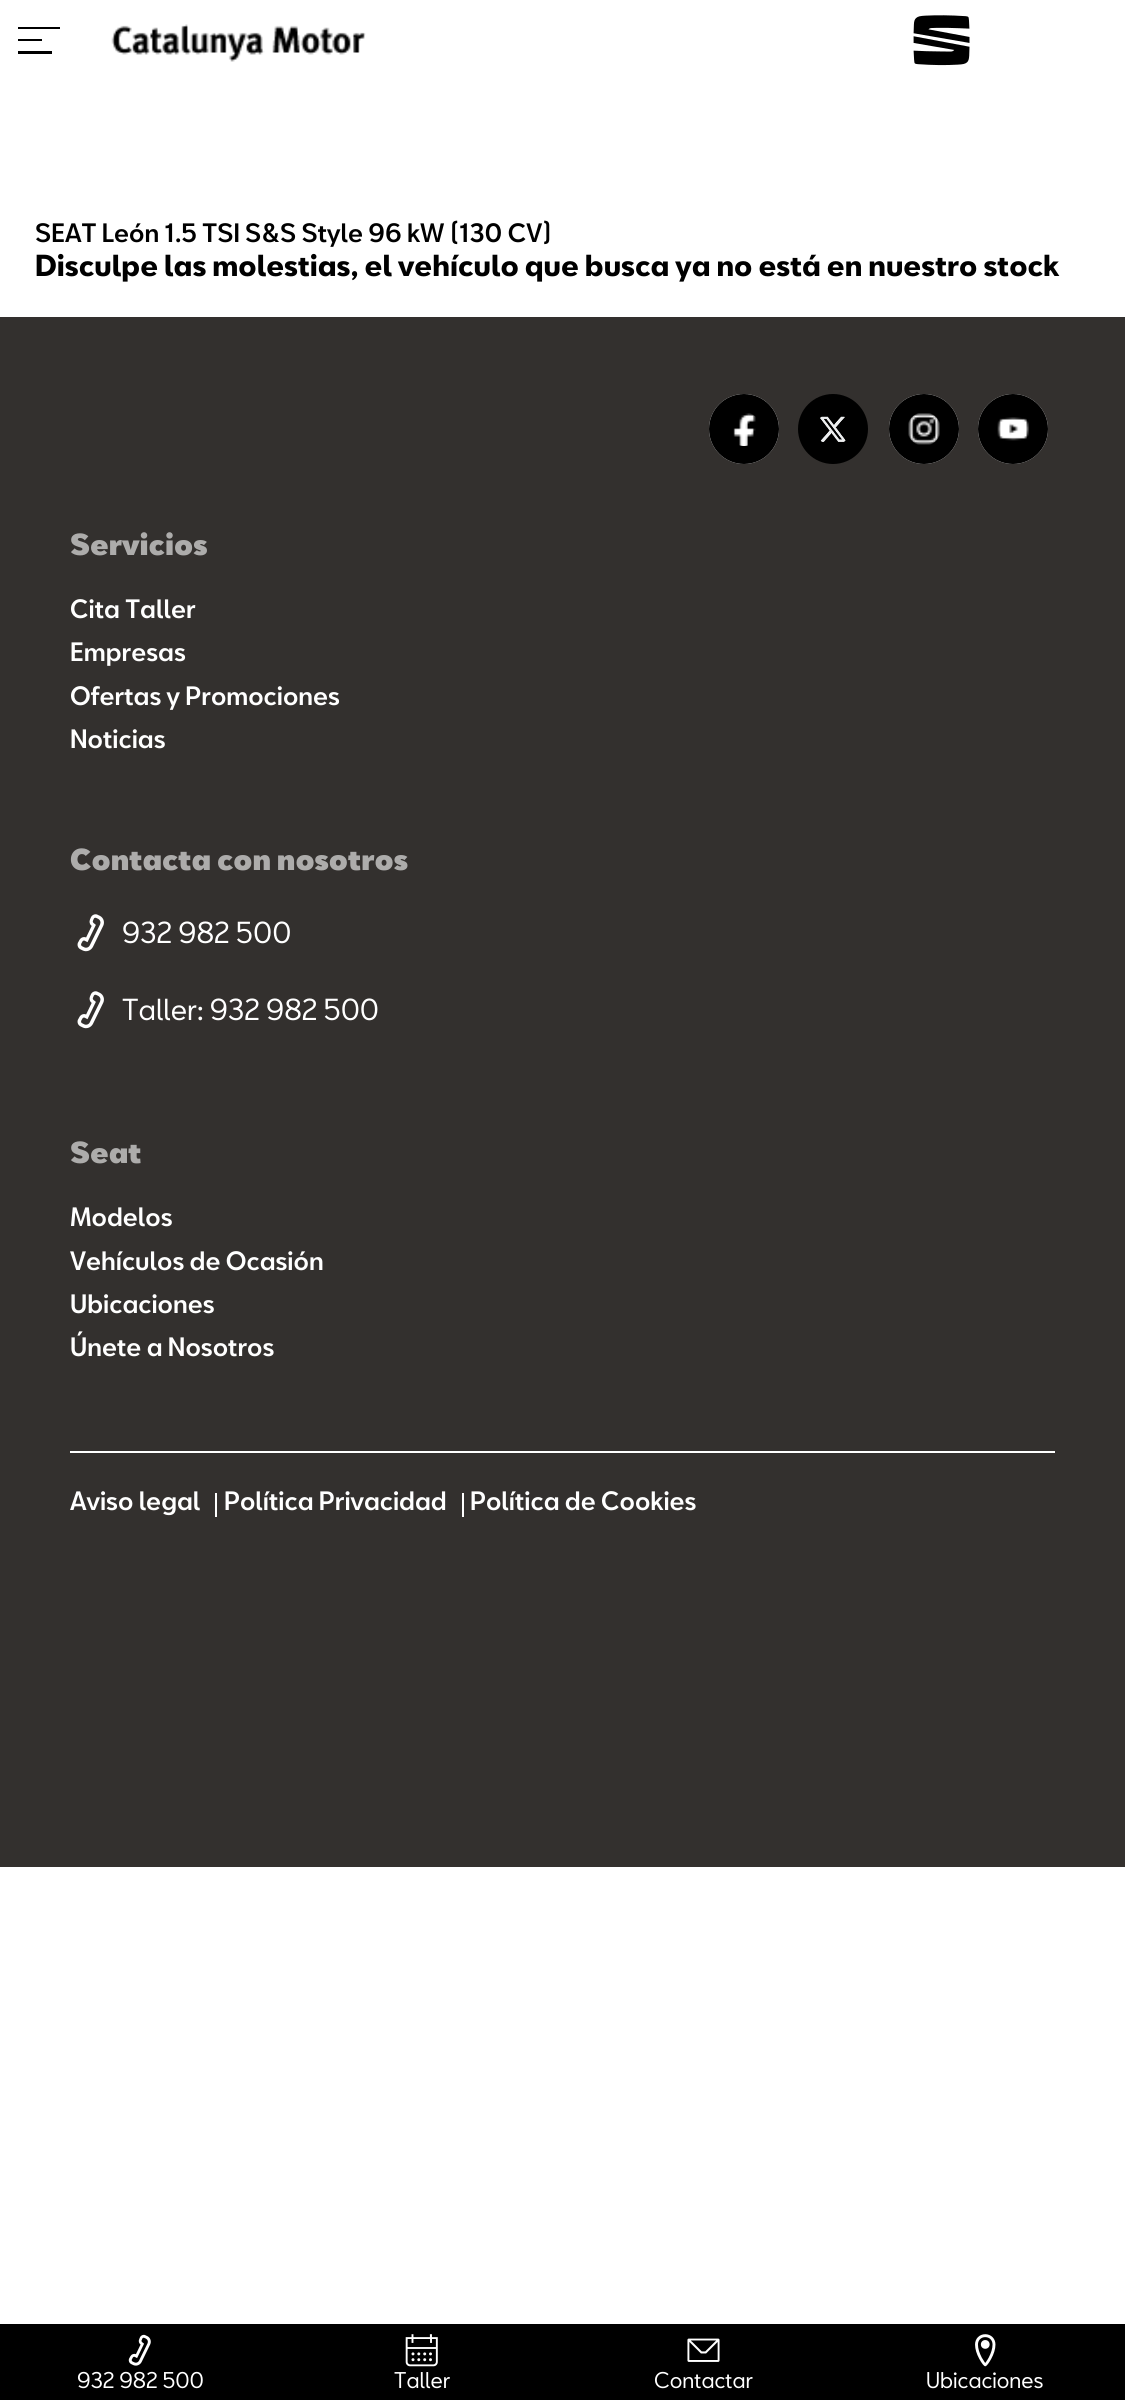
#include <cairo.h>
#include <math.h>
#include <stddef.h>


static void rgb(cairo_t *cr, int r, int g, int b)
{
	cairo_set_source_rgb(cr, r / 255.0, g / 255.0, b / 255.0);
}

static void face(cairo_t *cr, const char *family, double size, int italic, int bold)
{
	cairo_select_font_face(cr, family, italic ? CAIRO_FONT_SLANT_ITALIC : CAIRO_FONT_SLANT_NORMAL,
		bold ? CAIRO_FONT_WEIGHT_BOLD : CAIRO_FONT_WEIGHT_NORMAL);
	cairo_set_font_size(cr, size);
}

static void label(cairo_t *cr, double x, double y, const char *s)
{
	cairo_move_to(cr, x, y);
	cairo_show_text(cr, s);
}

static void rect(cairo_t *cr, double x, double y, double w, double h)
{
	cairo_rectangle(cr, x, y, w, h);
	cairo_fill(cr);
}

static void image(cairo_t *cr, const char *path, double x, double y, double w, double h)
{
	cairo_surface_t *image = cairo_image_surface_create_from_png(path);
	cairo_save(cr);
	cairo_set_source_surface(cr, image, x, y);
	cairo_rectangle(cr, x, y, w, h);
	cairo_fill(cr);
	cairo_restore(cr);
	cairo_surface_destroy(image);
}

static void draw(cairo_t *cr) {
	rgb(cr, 255, 255, 255);
	cairo_paint(cr);
	rgb(cr, 0, 0, 0);
	cairo_new_path(cr);
	cairo_move_to(cr, 18, 27);
	cairo_line_to(cr, 60, 27);
	cairo_line_to(cr, 60, 29);
	cairo_line_to(cr, 18, 29);
	cairo_close_path(cr);
	cairo_move_to(cr, 18, 39);
	cairo_line_to(cr, 42, 39);
	cairo_line_to(cr, 42, 41);
	cairo_line_to(cr, 18, 41);
	cairo_close_path(cr);
	cairo_move_to(cr, 18, 51);
	cairo_line_to(cr, 52, 51);
	cairo_line_to(cr, 52, 54);
	cairo_line_to(cr, 18, 54);
	cairo_close_path(cr);
	cairo_fill(cr);
	image(cr, "image0.png", 111, 24, 255, 38);
	image(cr, "image1.png", 913, 15, 57, 51);
	face(cr, "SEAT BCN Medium", 24.5, 0, 0);
	label(cr, 35, 242, "SEAT León 1.5 TSI S&S Style 96 kW (130 CV)");
	face(cr, "SEAT BCN", 28, 0, 1);
	label(cr, 35, 276, "Disculpe las molestias, el vehículo que busca ya no está en nuestro stock");
	rgb(cr, 51, 48, 46);
	rect(cr, 0, 317, 1125, 1550);
	face(cr, "SEAT BCN Black", 28, 0, 0);
	rgb(cr, 173, 172, 171);
	label(cr, 70, 555, "Servicios");
	face(cr, "SEAT BCN Medium", 24.5, 0, 0);
	rgb(cr, 255, 255, 255);
	label(cr, 70, 618, "Cita Taller");
	label(cr, 70, 661, "Empresas");
	label(cr, 70, 705, "Ofertas y Promociones");
	label(cr, 70, 748, "Noticias");
	face(cr, "SEAT BCN Black", 28, 0, 0);
	rgb(cr, 173, 172, 171);
	label(cr, 70, 870, "Contacta con nosotros");
	image(cr, "image2.png", 77, 914, 27, 38);
	face(cr, "SEAT BCN", 28, 0, 0);
	rgb(cr, 255, 255, 255);
	label(cr, 122, 943, "932 982 500");
	image(cr, "image2.png", 77, 991, 27, 38);
	label(cr, 122, 1020, "Taller: 932 982 500");
	cairo_new_path(cr);
	cairo_arc(cr, 744, 429, 35, 0, 2 * M_PI);
	cairo_fill(cr);
	image(cr, "image3.png", 727, 412, 34, 34);
	cairo_arc(cr, 744, 429, 26, 0, 2 * M_PI);
	rgb(cr, 0, 0, 0);
	cairo_set_line_width(cr, 18);
	cairo_stroke(cr);
	image(cr, "image4.png", 816, 412, 34, 34);
	cairo_arc(cr, 833, 429, 26, 0, 2 * M_PI);
	cairo_stroke(cr);
	rgb(cr, 255, 255, 255);
	cairo_arc(cr, 924, 429, 35, 0, 2 * M_PI);
	cairo_fill(cr);
	image(cr, "image5.png", 907, 412, 34, 34);
	cairo_arc(cr, 924, 429, 26, 0, 2 * M_PI);
	rgb(cr, 0, 0, 0);
	cairo_stroke(cr);
	rgb(cr, 255, 255, 255);
	cairo_arc(cr, 1013, 429, 35, 0, 2 * M_PI);
	cairo_fill(cr);
	image(cr, "image6.png", 996, 412, 34, 34);
	cairo_arc(cr, 1013, 429, 26, 0, 2 * M_PI);
	rgb(cr, 0, 0, 0);
	cairo_stroke(cr);
	face(cr, "SEAT BCN Black", 28, 0, 0);
	rgb(cr, 173, 172, 171);
	label(cr, 70, 1163, "Seat");
	face(cr, "SEAT BCN Medium", 24.5, 0, 0);
	rgb(cr, 255, 255, 255);
	label(cr, 70, 1226, "Modelos");
	label(cr, 70, 1270, "Vehículos de Ocasión");
	label(cr, 70, 1313, "Ubicaciones");
	label(cr, 70, 1356, "Únete a Nosotros");
	rect(cr, 70, 1451, 985, 2);
	label(cr, 70, 1510, "Aviso legal");
	rect(cr, 215, 1493, 2, 24);
	label(cr, 224, 1510, "Política Privacidad");
	rect(cr, 462, 1493, 2, 24);
	label(cr, 470, 1510, "Política de Cookies");
	rgb(cr, 0, 0, 0);
	rect(cr, 0, 2324, 1125, 76);
	image(cr, "image7.png", 128, 2334, 23, 32);
	face(cr, "SEAT BCN", 21, 0, 0);
	rgb(cr, 255, 255, 255);
	label(cr, 77, 2388, "932 982 500");
	image(cr, "image8.png", 405, 2334, 33, 33);
	label(cr, 394, 2388, "Taller");
	image(cr, "image9.png", 687, 2338, 33, 24);
	label(cr, 654, 2388, "Contactar");
	image(cr, "image10.png", 975, 2334, 21, 33);
	label(cr, 926, 2388, "Ubicaciones");
}

int main(void) {
	cairo_surface_t *surface = cairo_image_surface_create(CAIRO_FORMAT_RGB24, 1125, 2400);
	cairo_t *cr = cairo_create(surface);
	cairo_font_options_t *options = cairo_font_options_create();
	cairo_font_options_set_hint_metrics(options, CAIRO_HINT_METRICS_OFF);
	cairo_font_options_set_hint_style(options, CAIRO_HINT_STYLE_NONE);
	cairo_set_font_options(cr, options);
	cairo_set_miter_limit(cr, 4);
	draw(cr);
	cairo_surface_write_to_png(surface, "render.png");
	cairo_font_options_destroy(options);
	cairo_destroy(cr);
	cairo_surface_destroy(surface);
	return 0;
}
